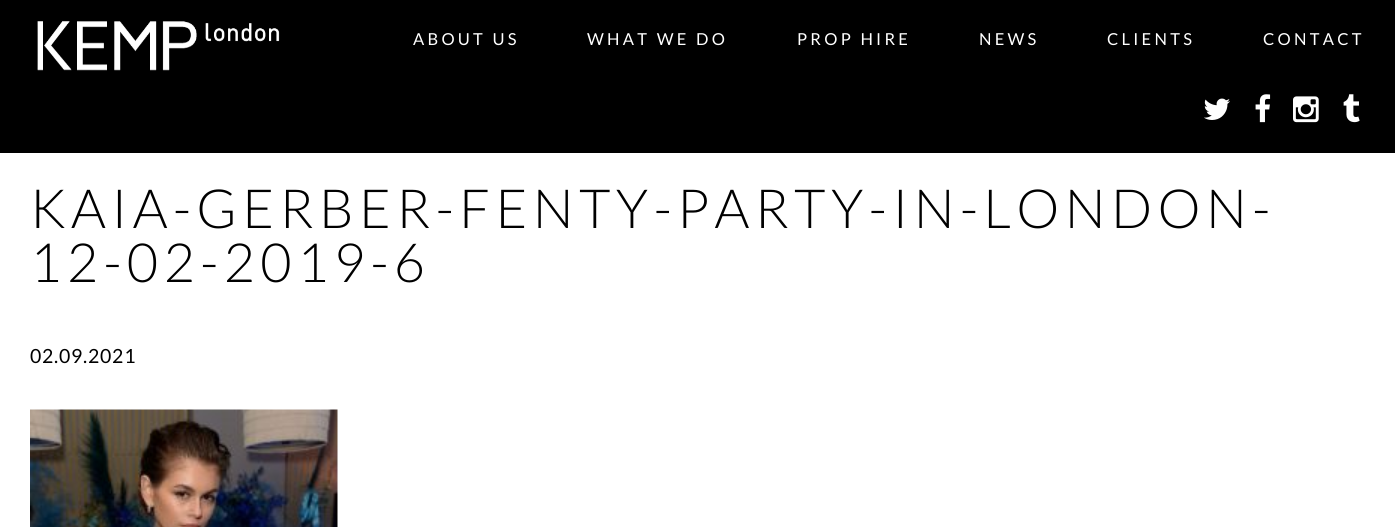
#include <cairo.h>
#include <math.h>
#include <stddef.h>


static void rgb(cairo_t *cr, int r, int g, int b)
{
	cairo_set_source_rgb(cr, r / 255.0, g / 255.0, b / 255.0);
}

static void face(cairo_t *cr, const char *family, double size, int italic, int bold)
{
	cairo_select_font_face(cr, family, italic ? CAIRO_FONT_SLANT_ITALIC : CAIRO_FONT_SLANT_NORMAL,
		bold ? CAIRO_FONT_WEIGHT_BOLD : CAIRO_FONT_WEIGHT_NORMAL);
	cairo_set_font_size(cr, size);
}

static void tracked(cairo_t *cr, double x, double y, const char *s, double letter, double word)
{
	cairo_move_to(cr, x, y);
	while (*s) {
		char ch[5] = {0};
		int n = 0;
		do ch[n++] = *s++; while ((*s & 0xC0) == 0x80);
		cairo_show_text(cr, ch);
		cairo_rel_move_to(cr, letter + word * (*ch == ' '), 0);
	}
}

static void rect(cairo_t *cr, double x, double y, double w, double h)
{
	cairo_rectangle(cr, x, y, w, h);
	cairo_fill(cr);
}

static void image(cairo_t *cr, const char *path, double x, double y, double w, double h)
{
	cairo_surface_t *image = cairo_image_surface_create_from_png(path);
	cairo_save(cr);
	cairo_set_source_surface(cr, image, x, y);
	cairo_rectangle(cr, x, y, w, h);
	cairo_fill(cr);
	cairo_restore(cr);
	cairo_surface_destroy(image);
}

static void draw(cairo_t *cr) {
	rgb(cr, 255, 255, 255);
	cairo_paint(cr);
	rgb(cr, 0, 0, 0);
	rect(cr, 0, 0, 1395, 153);
	image(cr, "image0.png", 37, 21, 243, 50);
	face(cr, "Lato", 16.5, 0, 0);
	rgb(cr, 255, 255, 255);
	tracked(cr, 413, 45, "ABOUT US", 3.25, 0);
	tracked(cr, 587, 45, "WHAT WE DO", 3.25, 0);
	tracked(cr, 797, 45, "PROP HIRE", 3.25, 0);
	tracked(cr, 979, 45, "NEWS", 3.25, 0);
	tracked(cr, 1107, 45, "CLIENTS", 3.25, 0);
	tracked(cr, 1263, 45, "CONTACT", 3.25, 0);
	image(cr, "image1.png", 1204, 98, 26, 22);
	image(cr, "image2.png", 1255, 94, 16, 29);
	image(cr, "image3.png", 1293, 96, 26, 27);
	image(cr, "image4.png", 1343, 94, 17, 29);
	face(cr, "Lato Light", 54, 0, 0);
	rgb(cr, 0, 0, 0);
	tracked(cr, 30, 228, "KAIA-GERBER-FENTY-PARTY-IN-LONDON-", 5.4, 0);
	tracked(cr, 30, 282, "12-02-2019-6", 5.4, 0);
	face(cr, "Lato", 19.5, 0, 0);
	tracked(cr, 30, 363, "02.09.2021", 0.75, 0);
	image(cr, "image5.png", 30, 409, 308, 118);
}

int main(void) {
	cairo_surface_t *surface = cairo_image_surface_create(CAIRO_FORMAT_RGB24, 1395, 527);
	cairo_t *cr = cairo_create(surface);
	cairo_font_options_t *options = cairo_font_options_create();
	cairo_font_options_set_hint_metrics(options, CAIRO_HINT_METRICS_OFF);
	cairo_font_options_set_hint_style(options, CAIRO_HINT_STYLE_NONE);
	cairo_set_font_options(cr, options);
	cairo_set_miter_limit(cr, 4);
	draw(cr);
	cairo_surface_write_to_png(surface, "render.png");
	cairo_font_options_destroy(options);
	cairo_destroy(cr);
	cairo_surface_destroy(surface);
	return 0;
}
